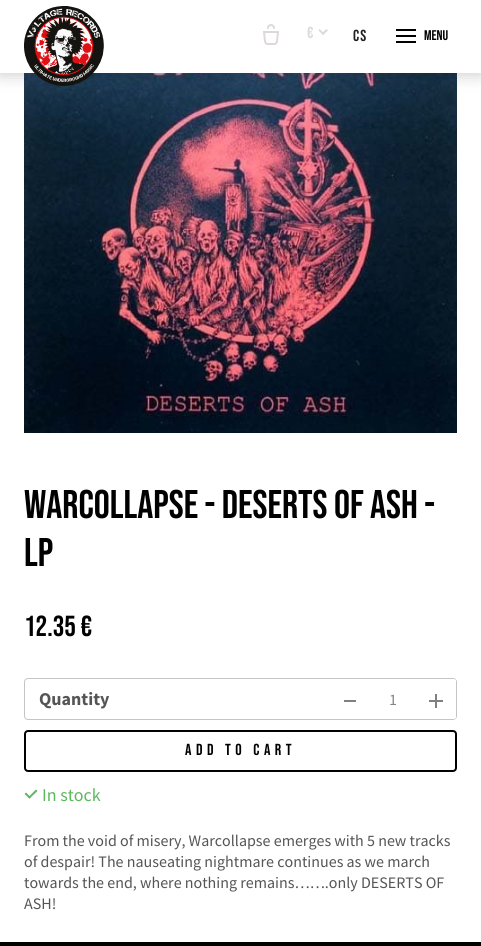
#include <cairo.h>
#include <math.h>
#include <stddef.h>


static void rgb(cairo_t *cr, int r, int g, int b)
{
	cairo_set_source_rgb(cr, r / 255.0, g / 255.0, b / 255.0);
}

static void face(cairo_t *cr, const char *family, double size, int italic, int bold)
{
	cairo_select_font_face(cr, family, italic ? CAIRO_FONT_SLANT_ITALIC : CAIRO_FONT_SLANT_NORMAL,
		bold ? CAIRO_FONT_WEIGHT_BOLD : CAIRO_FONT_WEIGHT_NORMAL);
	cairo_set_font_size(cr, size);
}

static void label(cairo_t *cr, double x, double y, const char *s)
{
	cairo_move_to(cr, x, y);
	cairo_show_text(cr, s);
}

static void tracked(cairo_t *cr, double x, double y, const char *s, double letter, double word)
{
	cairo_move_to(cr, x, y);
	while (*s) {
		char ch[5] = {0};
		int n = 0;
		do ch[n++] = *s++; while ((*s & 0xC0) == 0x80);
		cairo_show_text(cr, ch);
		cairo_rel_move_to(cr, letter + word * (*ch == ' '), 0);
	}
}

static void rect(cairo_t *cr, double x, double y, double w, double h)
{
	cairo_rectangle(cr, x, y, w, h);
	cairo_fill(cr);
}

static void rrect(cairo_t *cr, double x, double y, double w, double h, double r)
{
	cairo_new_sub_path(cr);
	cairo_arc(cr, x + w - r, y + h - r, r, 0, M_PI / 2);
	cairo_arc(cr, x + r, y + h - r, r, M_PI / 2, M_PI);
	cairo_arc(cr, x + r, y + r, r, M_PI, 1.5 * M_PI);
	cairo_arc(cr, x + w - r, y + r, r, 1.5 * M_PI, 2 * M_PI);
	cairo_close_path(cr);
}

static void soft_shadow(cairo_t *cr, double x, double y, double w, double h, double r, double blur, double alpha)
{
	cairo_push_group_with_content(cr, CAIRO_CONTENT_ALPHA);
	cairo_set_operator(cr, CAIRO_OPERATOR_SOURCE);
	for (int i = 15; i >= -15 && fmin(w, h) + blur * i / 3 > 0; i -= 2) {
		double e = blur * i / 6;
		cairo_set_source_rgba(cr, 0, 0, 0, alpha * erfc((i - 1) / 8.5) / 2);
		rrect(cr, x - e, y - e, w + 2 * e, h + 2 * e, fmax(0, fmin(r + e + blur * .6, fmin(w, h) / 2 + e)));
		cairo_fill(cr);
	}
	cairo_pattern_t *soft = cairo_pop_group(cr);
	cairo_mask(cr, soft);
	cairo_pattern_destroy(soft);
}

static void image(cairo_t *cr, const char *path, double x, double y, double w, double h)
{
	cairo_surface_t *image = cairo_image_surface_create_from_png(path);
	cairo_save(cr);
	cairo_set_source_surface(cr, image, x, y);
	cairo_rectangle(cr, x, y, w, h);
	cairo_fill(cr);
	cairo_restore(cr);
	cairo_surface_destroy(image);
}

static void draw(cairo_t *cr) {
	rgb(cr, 255, 255, 255);
	cairo_paint(cr);
	image(cr, "image2.png", 24, 73, 433, 360);
	rgb(cr, 0, 0, 0);
	soft_shadow(cr, 0, 2, 481, 73, 0, 8, 0.2);
	rgb(cr, 255, 255, 255);
	rect(cr, 0, 0, 481, 73);
	image(cr, "image0.png", 24, 6, 80, 80);
	image(cr, "image1.png", 263, 24, 16, 21);
	face(cr, "Bebas Neue", 16, 0, 0);
	rgb(cr, 222, 217, 217);
	tracked(cr, 307, 38, "€", 1, 0);
	cairo_new_path(cr);
	cairo_move_to(cr, 326.5, 29);
	cairo_line_to(cr, 328, 30.5);
	cairo_line_to(cr, 323, 35);
	cairo_line_to(cr, 321.5, 33.5);
	cairo_close_path(cr);
	cairo_fill(cr);
	cairo_new_path(cr);
	cairo_move_to(cr, 319.5, 29);
	cairo_line_to(cr, 324.5, 33.5);
	cairo_line_to(cr, 323, 35);
	cairo_line_to(cr, 318.5, 30.5);
	cairo_close_path(cr);
	cairo_fill(cr);
	rgb(cr, 30, 30, 30);
	tracked(cr, 353, 41, "cs", 1, 0);
	rgb(cr, 0, 0, 0);
	rect(cr, 396, 29, 20, 2);
	rect(cr, 396, 35, 20, 2);
	rect(cr, 396, 41, 20, 2);
	face(cr, "Bebas Neue", 14, 0, 0);
	label(cr, 424, 40, "Menu");
	face(cr, "Bebas Neue", 40, 0, 0);
	label(cr, 24, 518, "Warcollapse - Deserts of Ash -");
	label(cr, 24, 566, "LP");
	face(cr, "Bebas Neue", 29, 0, 0);
	label(cr, 24, 636, "12.35 €");
	rrect(cr, 24.5, 678.5, 432, 41, 3.5);
	rgb(cr, 197, 197, 197);
	cairo_set_line_width(cr, 1);
	cairo_stroke(cr);
	face(cr, "Source Sans Pro", 18, 0, 1);
	rgb(cr, 85, 85, 85);
	label(cr, 39, 705, "Quantity");
	rgb(cr, 255, 255, 255);
	rrect(cr, 330, 679, 126, 40, 4);
	cairo_fill(cr);
	rgb(cr, 128, 128, 128);
	rect(cr, 344, 700, 12, 2);
	face(cr, "Source Sans Pro", 16, 0, 0);
	rgb(cr, 133, 133, 133);
	label(cr, 389, 705, "1");
	rgb(cr, 255, 255, 255);
	cairo_new_path(cr);
	cairo_move_to(cr, 416, 679);
	cairo_line_to(cr, 454, 679);
	cairo_curve_to(cr, 455, 679, 456, 680, 456, 681);
	cairo_line_to(cr, 456, 717);
	cairo_curve_to(cr, 456, 718, 455, 719, 454, 719);
	cairo_line_to(cr, 416, 719);
	cairo_close_path(cr);
	cairo_fill(cr);
	rgb(cr, 128, 128, 128);
	rect(cr, 429, 700, 14, 2);
	rect(cr, 435, 694, 2, 14);
	rrect(cr, 25, 731, 431, 40, 3);
	rgb(cr, 1, 1, 1);
	cairo_set_line_width(cr, 2);
	cairo_stroke(cr);
	face(cr, "Bebas Neue", 16, 0, 0);
	rgb(cr, 0, 0, 0);
	tracked(cr, 185, 755, "ADD TO CART", 4.5, 0);
	rgb(cr, 92, 184, 92);
	cairo_new_path(cr);
	cairo_move_to(cr, 36, 789.5);
	cairo_line_to(cr, 37.5, 791);
	cairo_line_to(cr, 29.5, 798.5);
	cairo_line_to(cr, 28, 797.5);
	cairo_close_path(cr);
	cairo_fill(cr);
	cairo_new_path(cr);
	cairo_move_to(cr, 26, 792.5);
	cairo_line_to(cr, 31, 797.5);
	cairo_line_to(cr, 29.5, 798.5);
	cairo_line_to(cr, 24.5, 794);
	cairo_close_path(cr);
	cairo_fill(cr);
	face(cr, "Source Sans Pro", 18, 0, 0);
	label(cr, 42, 801, "In stock");
	face(cr, "Source Sans Pro", 16, 0, 0);
	rgb(cr, 85, 85, 85);
	label(cr, 24, 846, "From the void of misery, Warcollapse emerges with 5 new tracks");
	label(cr, 24, 867, "of despair! The nauseating nightmare continues as we march");
	label(cr, 24, 888, "towards the end, where nothing remains…….only DESERTS OF");
	label(cr, 24, 909, "ASH!");
	rgb(cr, 1, 1, 1);
	rect(cr, 0, 942, 481, 4);
}

int main(void) {
	cairo_surface_t *surface = cairo_image_surface_create(CAIRO_FORMAT_RGB24, 481, 946);
	cairo_t *cr = cairo_create(surface);
	cairo_font_options_t *options = cairo_font_options_create();
	cairo_font_options_set_hint_metrics(options, CAIRO_HINT_METRICS_OFF);
	cairo_font_options_set_hint_style(options, CAIRO_HINT_STYLE_NONE);
	cairo_set_font_options(cr, options);
	cairo_set_miter_limit(cr, 4);
	draw(cr);
	cairo_surface_write_to_png(surface, "render.png");
	cairo_font_options_destroy(options);
	cairo_destroy(cr);
	cairo_surface_destroy(surface);
	return 0;
}
